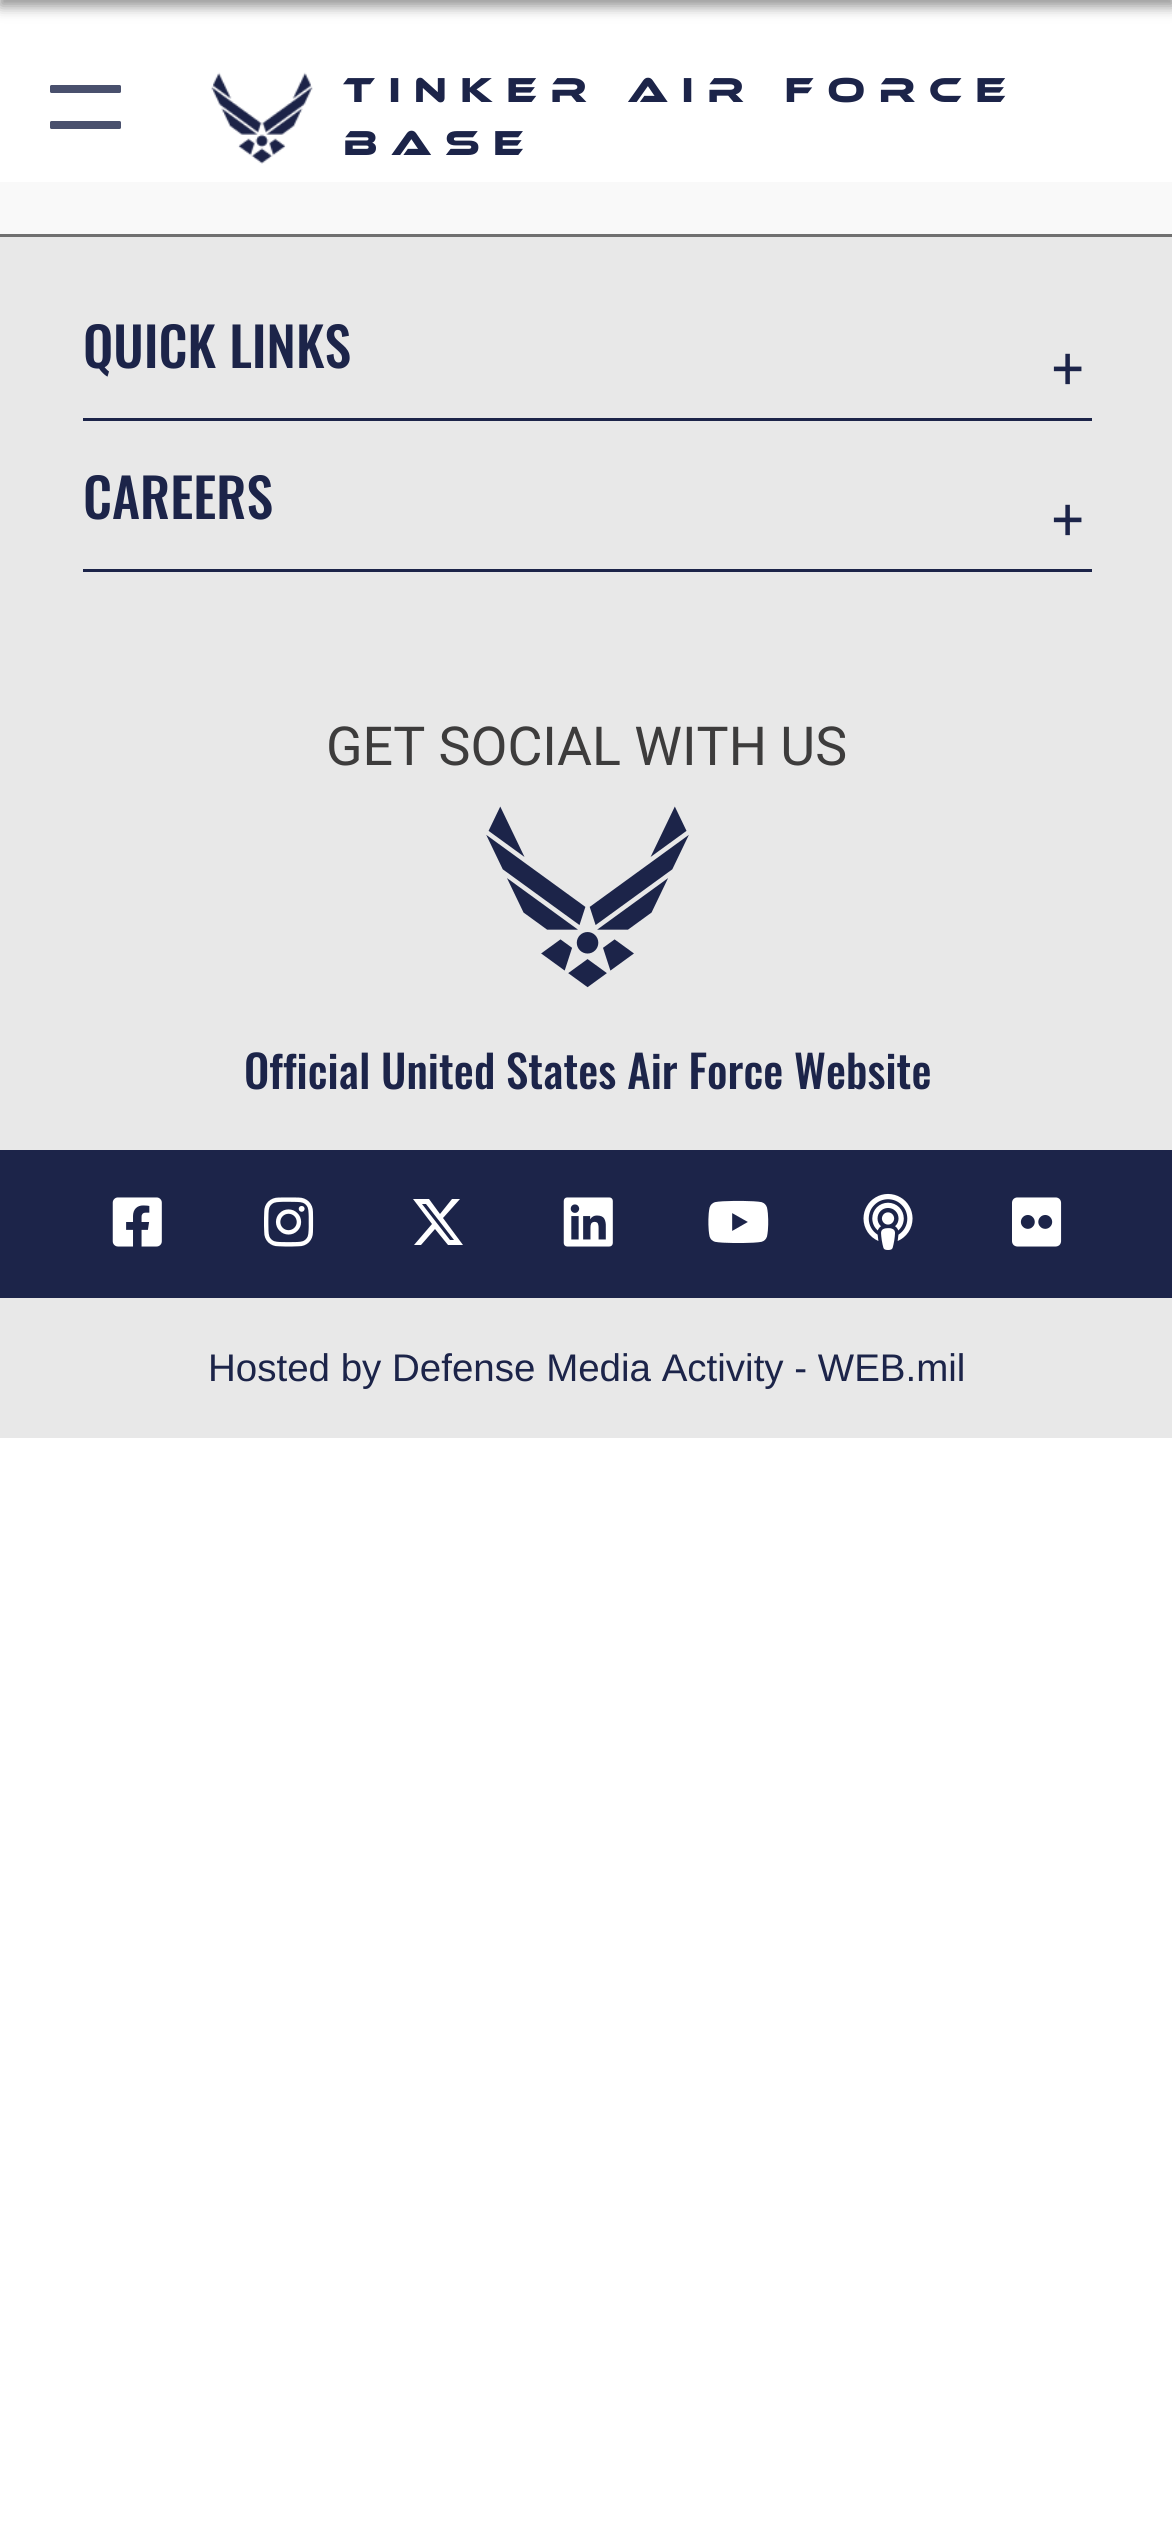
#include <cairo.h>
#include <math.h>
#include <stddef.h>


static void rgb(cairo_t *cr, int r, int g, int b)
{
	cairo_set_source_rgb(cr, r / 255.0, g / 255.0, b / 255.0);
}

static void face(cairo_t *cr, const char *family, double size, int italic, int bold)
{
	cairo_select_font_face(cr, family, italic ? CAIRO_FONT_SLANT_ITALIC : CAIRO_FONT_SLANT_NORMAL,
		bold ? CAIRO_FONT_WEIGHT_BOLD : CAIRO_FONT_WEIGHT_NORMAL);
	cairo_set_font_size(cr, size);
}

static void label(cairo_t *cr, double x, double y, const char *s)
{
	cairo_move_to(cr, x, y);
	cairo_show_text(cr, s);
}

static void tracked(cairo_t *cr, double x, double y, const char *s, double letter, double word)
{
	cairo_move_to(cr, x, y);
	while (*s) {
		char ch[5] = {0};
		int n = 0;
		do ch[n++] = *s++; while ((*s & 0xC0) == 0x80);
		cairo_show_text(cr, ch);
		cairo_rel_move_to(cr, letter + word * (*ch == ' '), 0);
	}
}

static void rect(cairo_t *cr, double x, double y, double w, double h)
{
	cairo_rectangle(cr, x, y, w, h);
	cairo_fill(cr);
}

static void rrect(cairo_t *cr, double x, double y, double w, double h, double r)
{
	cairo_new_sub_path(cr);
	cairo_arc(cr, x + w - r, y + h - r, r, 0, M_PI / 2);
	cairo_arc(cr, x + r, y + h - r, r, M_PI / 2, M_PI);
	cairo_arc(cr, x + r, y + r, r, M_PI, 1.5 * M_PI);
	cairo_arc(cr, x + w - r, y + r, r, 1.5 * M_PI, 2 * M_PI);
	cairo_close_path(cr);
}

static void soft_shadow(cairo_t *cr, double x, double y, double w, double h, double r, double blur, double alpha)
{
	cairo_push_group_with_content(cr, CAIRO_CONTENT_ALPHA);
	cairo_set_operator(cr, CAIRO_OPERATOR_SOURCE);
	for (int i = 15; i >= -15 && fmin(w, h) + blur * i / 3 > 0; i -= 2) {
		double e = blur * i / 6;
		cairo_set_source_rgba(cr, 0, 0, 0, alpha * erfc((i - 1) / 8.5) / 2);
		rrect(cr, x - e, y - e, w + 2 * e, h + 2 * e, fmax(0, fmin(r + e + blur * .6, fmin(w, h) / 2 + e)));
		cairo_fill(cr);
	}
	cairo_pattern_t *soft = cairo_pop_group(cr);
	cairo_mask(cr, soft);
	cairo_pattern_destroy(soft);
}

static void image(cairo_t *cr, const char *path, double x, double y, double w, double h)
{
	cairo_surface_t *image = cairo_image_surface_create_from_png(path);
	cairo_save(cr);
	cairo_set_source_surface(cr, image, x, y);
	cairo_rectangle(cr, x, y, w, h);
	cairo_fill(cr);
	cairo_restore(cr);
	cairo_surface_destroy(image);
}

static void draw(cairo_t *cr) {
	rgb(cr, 255, 255, 255);
	cairo_paint(cr);
	rgb(cr, 26, 26, 26);
	soft_shadow(cr, 0, -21, 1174, 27, 0, 7, 0.5);
	rgb(cr, 112, 112, 112);
	rect(cr, 0, 234, 1172, 3);
	rgb(cr, 73, 80, 109);
	rrect(cr, 50, 85, 71, 8, 1.5);
	cairo_fill(cr);
	rrect(cr, 50, 121, 71, 8, 1.5);
	cairo_fill(cr);
	image(cr, "image0.png", 211, 72, 102, 92);
	face(cr, "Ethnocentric", 35.75, 0, 0);
	rgb(cr, 28, 36, 73);
	tracked(cr, 343, 102, "Tinker Air Force", 13.5, 0);
	tracked(cr, 343, 155, "Base", 13.5, 0);
	rgb(cr, 232, 232, 232);
	rect(cr, 0, 237, 1172, 1201);
	rgb(cr, 249, 249, 249);
	rect(cr, 0, 182, 1172, 52);
	rgb(cr, 28, 36, 73);
	rect(cr, 83, 418, 1009, 3);
	face(cr, "Oswald Medium", 53.75, 0, 0);
	label(cr, 83, 368, "QUICK LINKS");
	face(cr, "Oswald Light", 82, 0, 0);
	label(cr, 1052, 403, "+");
	rect(cr, 83, 569, 1009, 3);
	face(cr, "Oswald Medium", 53.75, 0, 0);
	label(cr, 83, 519, "CAREERS");
	face(cr, "Oswald Light", 82, 0, 0);
	label(cr, 1052, 554, "+");
	face(cr, "Roboto", 53.75, 0, 0);
	rgb(cr, 61, 60, 60);
	label(cr, 326, 765, "GET SOCIAL WITH US");
	image(cr, "image1.png", 486, 806, 203, 182);
	face(cr, "Oswald Medium", 44.9, 0, 0);
	rgb(cr, 28, 36, 73);
	label(cr, 244, 1089, "Official United States Air Force Website");
	rect(cr, 0, 1150, 1172, 148);
	image(cr, "image2.png", 112, 1197, 50, 50);
	image(cr, "image3.png", 264, 1197, 50, 50);
	rgb(cr, 255, 255, 255);
	cairo_new_path(cr);
	cairo_move_to(cr, 452, 1199);
	cairo_line_to(cr, 460, 1199);
	cairo_line_to(cr, 443, 1218);
	cairo_line_to(cr, 463, 1245);
	cairo_line_to(cr, 448, 1245);
	cairo_line_to(cr, 435, 1229);
	cairo_line_to(cr, 421, 1245);
	cairo_line_to(cr, 414, 1245);
	cairo_line_to(cr, 432, 1224);
	cairo_line_to(cr, 413, 1199);
	cairo_line_to(cr, 429, 1199);
	cairo_line_to(cr, 440, 1214);
	cairo_close_path(cr);
	cairo_move_to(cr, 450, 1240);
	cairo_line_to(cr, 454, 1240);
	cairo_line_to(cr, 426, 1204);
	cairo_line_to(cr, 422, 1204);
	cairo_close_path(cr);
	cairo_fill(cr);
	image(cr, "image4.png", 563, 1197, 50, 50);
	image(cr, "image5.png", 708, 1200, 61, 43);
	image(cr, "image6.png", 863, 1193, 50, 57);
	image(cr, "image7.png", 1012, 1197, 50, 50);
	face(cr, "Liberation Sans", 38.5, 0, 0);
	rgb(cr, 28, 36, 73);
	label(cr, 208, 1381, "Hosted by Defense Media Activity - WEB.mil");
}

int main(void) {
	cairo_surface_t *surface = cairo_image_surface_create(CAIRO_FORMAT_RGB24, 1172, 2532);
	cairo_t *cr = cairo_create(surface);
	cairo_font_options_t *options = cairo_font_options_create();
	cairo_font_options_set_hint_metrics(options, CAIRO_HINT_METRICS_OFF);
	cairo_font_options_set_hint_style(options, CAIRO_HINT_STYLE_NONE);
	cairo_set_font_options(cr, options);
	cairo_set_miter_limit(cr, 4);
	draw(cr);
	cairo_surface_write_to_png(surface, "render.png");
	cairo_font_options_destroy(options);
	cairo_destroy(cr);
	cairo_surface_destroy(surface);
	return 0;
}
